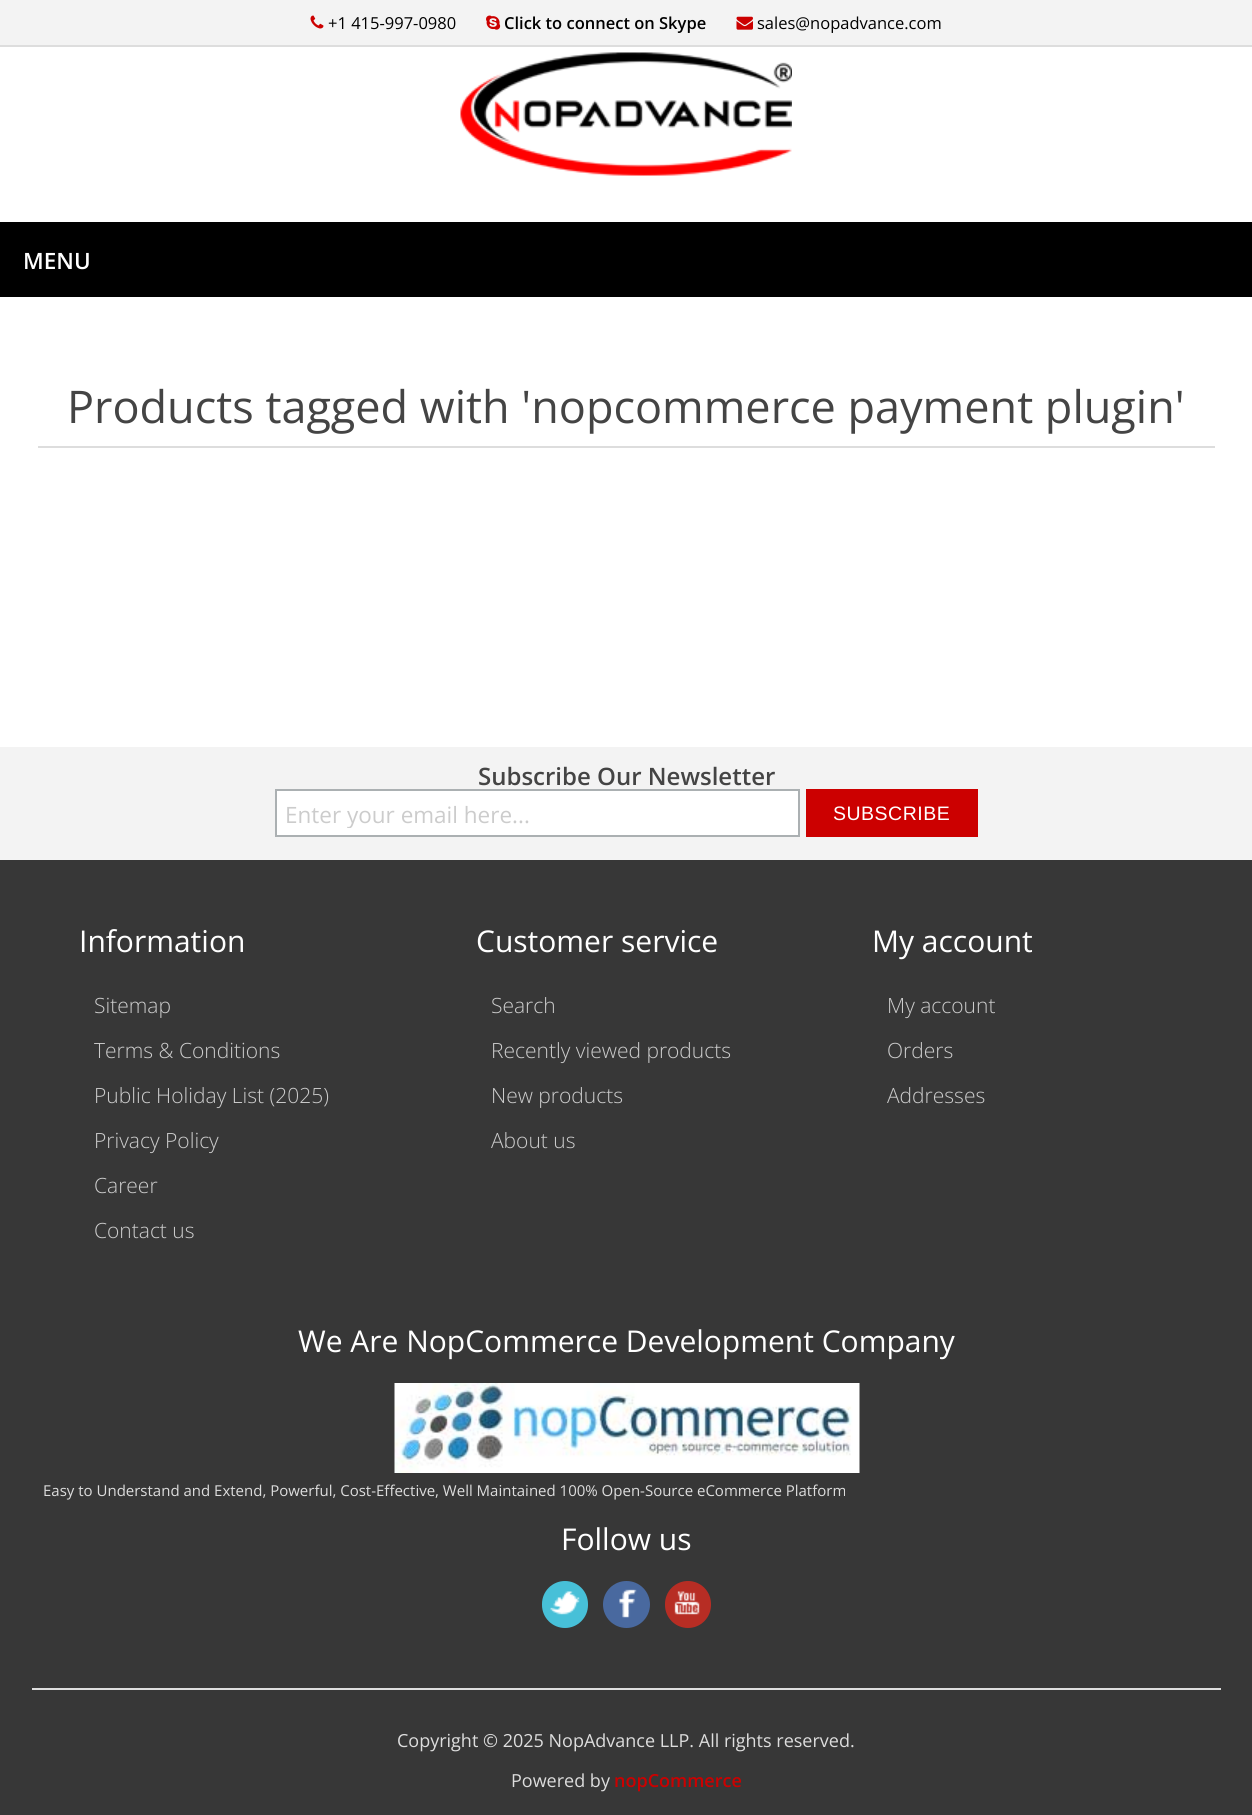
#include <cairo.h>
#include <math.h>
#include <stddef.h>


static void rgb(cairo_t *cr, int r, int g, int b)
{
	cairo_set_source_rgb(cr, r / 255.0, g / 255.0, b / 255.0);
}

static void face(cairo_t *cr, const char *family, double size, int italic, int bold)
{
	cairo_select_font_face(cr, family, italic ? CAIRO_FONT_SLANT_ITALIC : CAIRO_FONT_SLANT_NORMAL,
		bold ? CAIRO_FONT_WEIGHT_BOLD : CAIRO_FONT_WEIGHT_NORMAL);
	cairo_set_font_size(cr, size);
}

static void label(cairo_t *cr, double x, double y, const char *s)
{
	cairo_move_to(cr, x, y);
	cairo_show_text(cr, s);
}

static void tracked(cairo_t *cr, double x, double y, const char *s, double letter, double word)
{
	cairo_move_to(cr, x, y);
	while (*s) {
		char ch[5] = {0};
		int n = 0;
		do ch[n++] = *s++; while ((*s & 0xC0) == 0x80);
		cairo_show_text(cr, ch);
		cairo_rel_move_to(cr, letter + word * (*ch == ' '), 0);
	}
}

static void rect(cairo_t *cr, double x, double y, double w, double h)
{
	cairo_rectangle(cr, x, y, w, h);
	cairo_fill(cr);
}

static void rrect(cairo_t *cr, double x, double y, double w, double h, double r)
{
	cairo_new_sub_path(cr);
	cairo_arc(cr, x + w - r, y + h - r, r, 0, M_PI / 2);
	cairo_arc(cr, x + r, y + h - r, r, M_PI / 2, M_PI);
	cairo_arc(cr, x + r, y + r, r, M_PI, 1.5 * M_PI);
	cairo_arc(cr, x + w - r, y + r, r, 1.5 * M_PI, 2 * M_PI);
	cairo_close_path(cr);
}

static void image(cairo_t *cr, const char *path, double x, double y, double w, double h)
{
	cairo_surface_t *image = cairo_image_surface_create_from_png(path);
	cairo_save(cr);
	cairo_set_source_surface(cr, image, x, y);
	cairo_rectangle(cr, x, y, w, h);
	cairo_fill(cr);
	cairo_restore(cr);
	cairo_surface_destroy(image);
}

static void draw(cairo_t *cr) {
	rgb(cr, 255, 255, 255);
	cairo_paint(cr);
	rgb(cr, 243, 243, 243);
	rect(cr, 0, 0, 1252, 45);
	image(cr, "image0.png", 310, 15, 14, 14);
	face(cr, "Open Sans", 16.5, 0, 0);
	rgb(cr, 0, 0, 0);
	label(cr, 328, 29, "+1 415-997-0980");
	image(cr, "image1.png", 486, 15, 15, 15);
	face(cr, "Open Sans SemiBold", 16.5, 0, 0);
	label(cr, 504, 29, "Click to connect on Skype");
	image(cr, "image2.png", 736, 16, 17, 14);
	face(cr, "Open Sans", 16.5, 0, 0);
	label(cr, 757, 29, "sales@nopadvance.com");
	rgb(cr, 221, 221, 221);
	rect(cr, 0, 45, 1252, 2);
	image(cr, "image3.png", 460, 52, 332, 124);
	rgb(cr, 0, 0, 0);
	rect(cr, 0, 222, 1252, 75);
	face(cr, "Open Sans SemiBold", 22.5, 0, 0);
	rgb(cr, 255, 255, 255);
	label(cr, 23, 269, "MENU");
	rgb(cr, 221, 221, 221);
	rect(cr, 38, 446, 1177, 2);
	face(cr, "Open Sans", 45, 0, 0);
	rgb(cr, 68, 68, 68);
	label(cr, 67, 423, "Products tagged with 'nopcommerce payment plugin'");
	rgb(cr, 243, 243, 243);
	rect(cr, 0, 747, 1252, 113);
	face(cr, "Open Sans SemiBold", 24, 0, 0);
	rgb(cr, 68, 68, 68);
	label(cr, 478, 785, "Subscribe Our Newsletter");
	rgb(cr, 255, 255, 255);
	cairo_rectangle(cr, 276, 790, 523, 46);
	cairo_fill_preserve(cr);
	rgb(cr, 171, 176, 178);
	cairo_stroke(cr);
	cairo_save(cr);
	cairo_rectangle(cr, 285, 798, 504, 30);
	cairo_clip(cr);
	face(cr, "Open Sans", 22.5, 0, 0);
	rgb(cr, 204, 204, 204);
	label(cr, 285, 823, "Enter your email here...");
	cairo_restore(cr);
	rgb(cr, 204, 0, 0);
	rect(cr, 806, 789, 172, 48);
	face(cr, "Liberation Sans", 19.5, 0, 0);
	rgb(cr, 255, 255, 255);
	tracked(cr, 833, 820, "SUBSCRIBE", 0.5, 0);
	rgb(cr, 55, 55, 55);
	rect(cr, 0, 860, 1252, 955);
	rgb(cr, 221, 221, 221);
	rect(cr, 32, 1688, 1189, 2);
	face(cr, "Open Sans", 30, 0, 0);
	rgb(cr, 255, 255, 255);
	label(cr, 79, 952, "Information");
	face(cr, "Open Sans Light", 21, 0, 0);
	rgb(cr, 204, 204, 204);
	label(cr, 94, 1013, "Sitemap");
	label(cr, 94, 1058, "Terms & Conditions");
	label(cr, 94, 1103, "Public Holiday List (2025)");
	label(cr, 94, 1148, "Privacy Policy");
	label(cr, 94, 1193, "Career");
	label(cr, 94, 1238, "Contact us");
	face(cr, "Open Sans", 30, 0, 0);
	rgb(cr, 255, 255, 255);
	label(cr, 476, 952, "Customer service");
	face(cr, "Open Sans Light", 21, 0, 0);
	rgb(cr, 204, 204, 204);
	label(cr, 491, 1013, "Search");
	label(cr, 491, 1058, "Recently viewed products");
	label(cr, 491, 1103, "New products");
	label(cr, 491, 1148, "About us");
	face(cr, "Open Sans", 30, 0, 0);
	rgb(cr, 255, 255, 255);
	label(cr, 872, 952, "My account");
	face(cr, "Open Sans Light", 21, 0, 0);
	rgb(cr, 204, 204, 204);
	label(cr, 887, 1013, "My account");
	label(cr, 887, 1058, "Orders");
	label(cr, 887, 1103, "Addresses");
	face(cr, "Open Sans", 30, 0, 0);
	rgb(cr, 255, 255, 255);
	label(cr, 298, 1352, "We Are NopCommerce Development Company");
	image(cr, "image4.png", 394, 1383, 466, 90);
	face(cr, "Open Sans", 15, 0, 0);
	rgb(cr, 221, 221, 221);
	label(cr, 43, 1496, "Easy to Understand and Extend, Powerful, Cost-Effective, Well Maintained 100% Open-Source eCommerce Platform");
	face(cr, "Open Sans", 30, 0, 0);
	rgb(cr, 255, 255, 255);
	label(cr, 561, 1550, "Follow us");
	rgb(cr, 71, 192, 216);
	rrect(cr, 542, 1581, 46, 47, 23);
	cairo_fill(cr);
	image(cr, "image5.png", 550, 1591, 30, 24);
	rgb(cr, 73, 105, 159);
	cairo_arc(cr, 626.5, 1604.5, 23.5, 0, 2 * M_PI);
	cairo_fill(cr);
	image(cr, "image6.png", 619, 1589, 18, 29);
	rgb(cr, 183, 45, 36);
	rrect(cr, 665, 1581, 46, 47, 23);
	cairo_fill(cr);
	image(cr, "image7.png", 674, 1591, 26, 24);
	face(cr, "Open Sans", 18, 0, 0);
	rgb(cr, 221, 221, 221);
	label(cr, 397, 1747, "Copyright © 2025 NopAdvance LLP. All rights reserved.");
	label(cr, 511, 1787, "Powered by");
	face(cr, "Open Sans SemiBold", 18, 0, 0);
	rgb(cr, 204, 0, 0);
	label(cr, 614, 1787, "nopCommerce");
}

int main(void) {
	cairo_surface_t *surface = cairo_image_surface_create(CAIRO_FORMAT_RGB24, 1252, 1815);
	cairo_t *cr = cairo_create(surface);
	cairo_font_options_t *options = cairo_font_options_create();
	cairo_font_options_set_hint_metrics(options, CAIRO_HINT_METRICS_OFF);
	cairo_font_options_set_hint_style(options, CAIRO_HINT_STYLE_NONE);
	cairo_set_font_options(cr, options);
	cairo_set_miter_limit(cr, 4);
	draw(cr);
	cairo_surface_write_to_png(surface, "render.png");
	cairo_font_options_destroy(options);
	cairo_destroy(cr);
	cairo_surface_destroy(surface);
	return 0;
}
